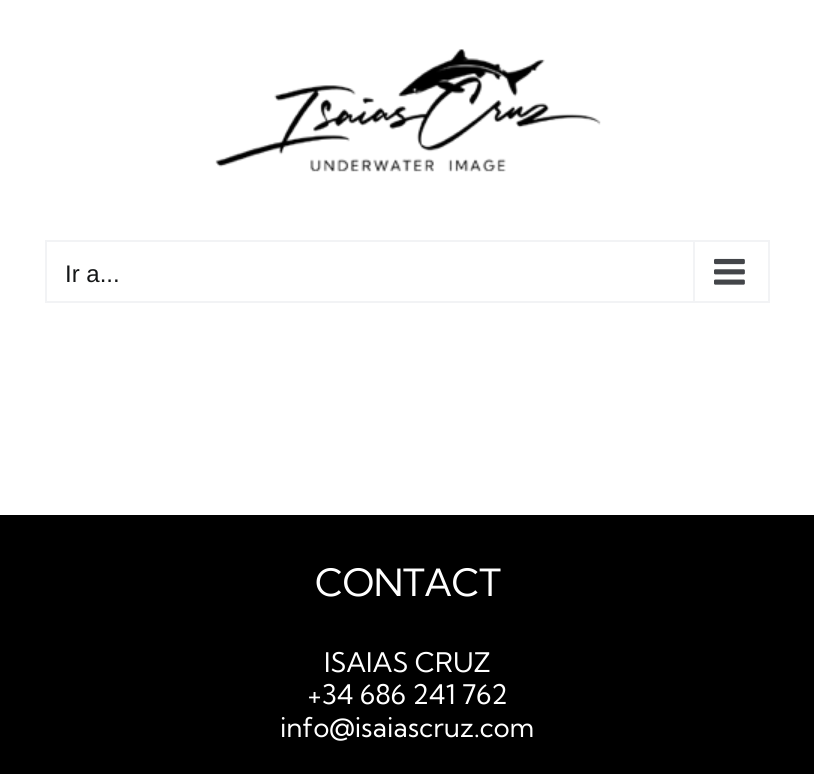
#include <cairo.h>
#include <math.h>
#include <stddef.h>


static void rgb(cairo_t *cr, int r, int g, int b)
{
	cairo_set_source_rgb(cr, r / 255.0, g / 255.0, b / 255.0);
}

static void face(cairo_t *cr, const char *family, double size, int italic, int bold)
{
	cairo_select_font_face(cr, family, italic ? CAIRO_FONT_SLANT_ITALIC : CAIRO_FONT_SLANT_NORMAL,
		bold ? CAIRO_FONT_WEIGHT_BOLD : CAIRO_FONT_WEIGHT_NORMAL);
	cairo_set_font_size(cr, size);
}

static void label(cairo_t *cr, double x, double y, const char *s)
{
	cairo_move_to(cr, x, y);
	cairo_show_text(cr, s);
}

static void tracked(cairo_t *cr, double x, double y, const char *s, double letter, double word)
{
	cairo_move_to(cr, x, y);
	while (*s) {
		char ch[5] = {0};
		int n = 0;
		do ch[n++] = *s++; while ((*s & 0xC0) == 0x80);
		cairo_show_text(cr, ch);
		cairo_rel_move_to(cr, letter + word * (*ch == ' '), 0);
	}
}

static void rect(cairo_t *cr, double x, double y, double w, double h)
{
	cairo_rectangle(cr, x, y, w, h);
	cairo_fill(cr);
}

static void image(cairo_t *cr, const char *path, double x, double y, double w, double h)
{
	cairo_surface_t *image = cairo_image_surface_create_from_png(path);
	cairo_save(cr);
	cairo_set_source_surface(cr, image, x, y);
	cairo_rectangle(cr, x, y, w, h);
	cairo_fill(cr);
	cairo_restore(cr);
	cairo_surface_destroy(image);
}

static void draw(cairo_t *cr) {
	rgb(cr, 255, 255, 255);
	cairo_paint(cr);
	image(cr, "image0.png", 215, 49, 386, 123);
	cairo_rectangle(cr, 46, 241, 723, 61);
	rgb(cr, 242, 243, 245);
	cairo_stroke(cr);
	face(cr, "Liberation Sans", 24, 0, 0);
	rgb(cr, 20, 22, 23);
	label(cr, 65, 282, "Ir a...");
	rgb(cr, 242, 243, 245);
	rect(cr, 693, 242, 2, 60);
	image(cr, "image1.png", 714, 258, 31, 27);
	rgb(cr, 0, 0, 0);
	rect(cr, 0, 515, 814, 259);
	face(cr, "Kumbh Sans", 37.5, 0, 0);
	rgb(cr, 255, 255, 255);
	tracked(cr, 315, 596, "CONTACT", -0.5, 0);
	face(cr, "Kumbh Sans", 27, 0, 0);
	label(cr, 324, 672, "ISAIAS CRUZ");
	label(cr, 307, 704, "+34 686 241 762");
	label(cr, 280, 737, "info@isaiascruz.com");
}

int main(void) {
	cairo_surface_t *surface = cairo_image_surface_create(CAIRO_FORMAT_RGB24, 814, 774);
	cairo_t *cr = cairo_create(surface);
	cairo_font_options_t *options = cairo_font_options_create();
	cairo_font_options_set_hint_metrics(options, CAIRO_HINT_METRICS_OFF);
	cairo_font_options_set_hint_style(options, CAIRO_HINT_STYLE_NONE);
	cairo_set_font_options(cr, options);
	cairo_set_miter_limit(cr, 4);
	draw(cr);
	cairo_surface_write_to_png(surface, "render.png");
	cairo_font_options_destroy(options);
	cairo_destroy(cr);
	cairo_surface_destroy(surface);
	return 0;
}
